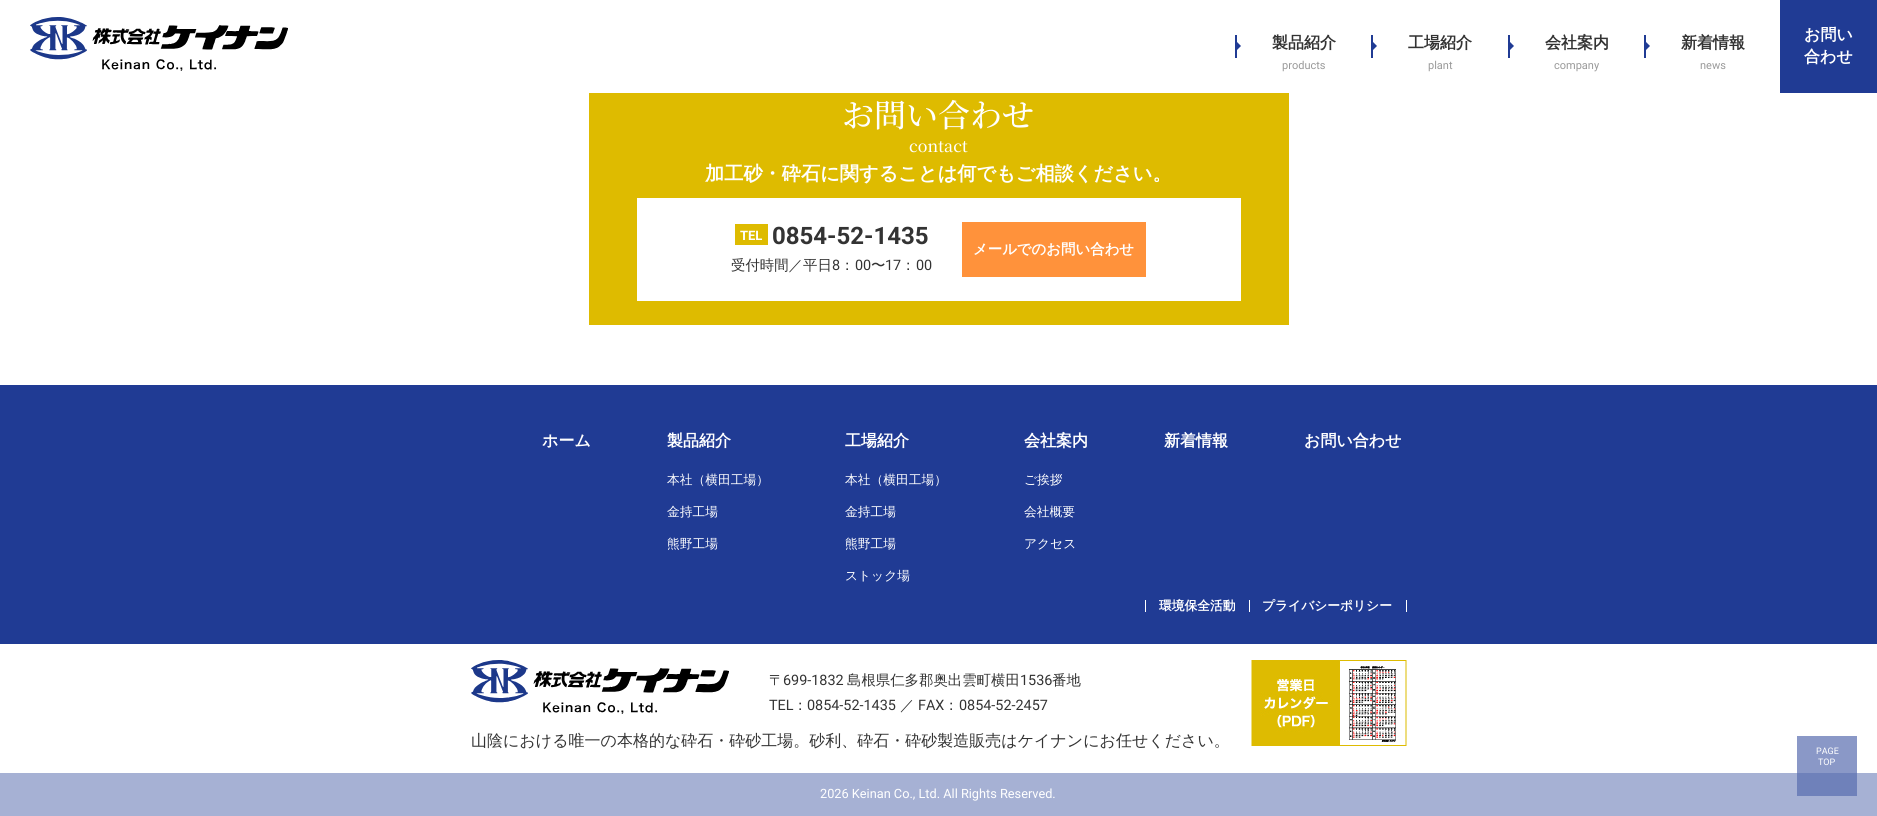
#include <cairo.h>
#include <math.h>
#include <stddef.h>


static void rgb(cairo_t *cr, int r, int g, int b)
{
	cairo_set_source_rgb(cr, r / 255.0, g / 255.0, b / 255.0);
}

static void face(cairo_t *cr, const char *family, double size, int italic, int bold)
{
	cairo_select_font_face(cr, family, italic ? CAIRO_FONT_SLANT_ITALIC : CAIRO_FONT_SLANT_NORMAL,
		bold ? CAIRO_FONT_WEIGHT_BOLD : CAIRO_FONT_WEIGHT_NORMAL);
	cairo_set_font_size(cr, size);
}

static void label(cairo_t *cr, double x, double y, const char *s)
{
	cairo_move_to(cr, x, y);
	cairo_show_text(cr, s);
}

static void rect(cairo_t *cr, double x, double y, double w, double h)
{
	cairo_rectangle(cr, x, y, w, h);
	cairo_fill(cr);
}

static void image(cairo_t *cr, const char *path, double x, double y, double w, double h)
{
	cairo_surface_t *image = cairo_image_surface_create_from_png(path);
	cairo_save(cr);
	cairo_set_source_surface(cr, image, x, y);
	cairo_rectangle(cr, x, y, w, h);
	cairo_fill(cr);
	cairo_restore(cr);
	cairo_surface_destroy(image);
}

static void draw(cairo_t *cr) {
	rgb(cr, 255, 255, 255);
	cairo_paint(cr);
	rgb(cr, 138, 152, 199);
	rect(cr, 1797, 736, 60, 37);
	image(cr, "image0.png", 30, 17, 258, 54);
	rgb(cr, 32, 59, 148);
	rect(cr, 1235, 35, 2, 23);
	cairo_new_path(cr);
	cairo_move_to(cr, 1237, 50);
	cairo_line_to(cr, 1237, 42);
	cairo_line_to(cr, 1241, 46);
	cairo_close_path(cr);
	cairo_fill(cr);
	face(cr, "WenQuanYi Zen Hei", 16, 0, 1);
	rgb(cr, 51, 51, 51);
	label(cr, 1272, 48, "製品紹介");
	face(cr, "Roboto", 11, 0, 0);
	rgb(cr, 153, 153, 153);
	label(cr, 1282, 69, "products");
	rgb(cr, 32, 59, 148);
	rect(cr, 1371, 35, 2, 23);
	cairo_new_path(cr);
	cairo_move_to(cr, 1373, 50);
	cairo_line_to(cr, 1373, 42);
	cairo_line_to(cr, 1377, 46);
	cairo_close_path(cr);
	cairo_fill(cr);
	face(cr, "WenQuanYi Zen Hei", 16, 0, 1);
	rgb(cr, 51, 51, 51);
	label(cr, 1408, 48, "工場紹介");
	face(cr, "Roboto", 11, 0, 0);
	rgb(cr, 153, 153, 153);
	label(cr, 1428, 69, "plant");
	rgb(cr, 32, 59, 148);
	rect(cr, 1508, 35, 2, 23);
	cairo_new_path(cr);
	cairo_move_to(cr, 1510, 50);
	cairo_line_to(cr, 1510, 42);
	cairo_line_to(cr, 1514, 46);
	cairo_close_path(cr);
	cairo_fill(cr);
	face(cr, "WenQuanYi Zen Hei", 16, 0, 1);
	rgb(cr, 51, 51, 51);
	label(cr, 1545, 48, "会社案内");
	face(cr, "Roboto", 11, 0, 0);
	rgb(cr, 153, 153, 153);
	label(cr, 1554, 69, "company");
	rgb(cr, 32, 59, 148);
	rect(cr, 1644, 35, 2, 23);
	cairo_new_path(cr);
	cairo_move_to(cr, 1646, 50);
	cairo_line_to(cr, 1646, 42);
	cairo_line_to(cr, 1650, 46);
	cairo_close_path(cr);
	cairo_fill(cr);
	face(cr, "WenQuanYi Zen Hei", 16, 0, 1);
	rgb(cr, 51, 51, 51);
	label(cr, 1681, 48, "新着情報");
	face(cr, "Roboto", 11, 0, 0);
	rgb(cr, 153, 153, 153);
	label(cr, 1700, 69, "news");
	rgb(cr, 32, 59, 148);
	rect(cr, 1780, 0, 97, 93);
	face(cr, "WenQuanYi Zen Hei", 16, 0, 1);
	rgb(cr, 255, 255, 255);
	label(cr, 1804, 40, "お問い");
	label(cr, 1804, 62, "合わせ");
	rgb(cr, 222, 187, 0);
	rect(cr, 589, 93, 700, 232);
	face(cr, "Noto Serif JP Medium", 32, 0, 0);
	rgb(cr, 255, 255, 255);
	label(cr, 842, 127, "お問い合わせ");
	face(cr, "Noto Serif JP Medium", 16, 0, 0);
	label(cr, 909, 152, "contact");
	face(cr, "WenQuanYi Zen Hei", 19.2, 0, 1);
	label(cr, 705, 180, "加工砂・砕石に関することは何でもご相談ください。");
	rect(cr, 637, 198, 604, 103);
	rgb(cr, 222, 187, 0);
	rect(cr, 735, 224, 33, 21);
	face(cr, "Roboto", 13, 0, 1);
	rgb(cr, 255, 255, 255);
	label(cr, 740, 240, "TEL");
	face(cr, "Roboto", 24, 0, 1);
	rgb(cr, 51, 51, 51);
	label(cr, 772, 244, "0854-52-1435");
	face(cr, "WenQuanYi Zen Hei Medium", 14.4, 0, 0);
	label(cr, 731, 270, "受付時間／平日");
	face(cr, "Roboto", 14.4, 0, 0);
	label(cr, 832, 270, "8");
	face(cr, "WenQuanYi Zen Hei Medium", 14.4, 0, 0);
	label(cr, 840, 270, "：");
	face(cr, "Roboto", 14.4, 0, 0);
	label(cr, 855, 270, "00");
	face(cr, "WenQuanYi Zen Hei Medium", 14.4, 0, 0);
	label(cr, 871, 270, "〜");
	face(cr, "Roboto", 14.4, 0, 0);
	label(cr, 885, 270, "17");
	face(cr, "WenQuanYi Zen Hei Medium", 14.4, 0, 0);
	label(cr, 901, 270, "：");
	face(cr, "Roboto", 14.4, 0, 0);
	label(cr, 916, 270, "00");
	rgb(cr, 255, 146, 59);
	rect(cr, 962, 222, 184, 55);
	face(cr, "WenQuanYi Zen Hei", 14.4, 0, 1);
	rgb(cr, 255, 255, 255);
	label(cr, 973, 254, "メールでのお問い合わせ");
	rgb(cr, 32, 59, 148);
	rect(cr, 0, 385, 1877, 259);
	face(cr, "WenQuanYi Zen Hei", 16, 0, 1);
	rgb(cr, 255, 255, 255);
	label(cr, 542, 446, "ホーム");
	label(cr, 667, 446, "製品紹介");
	face(cr, "WenQuanYi Zen Hei Medium", 12.75, 0, 0);
	label(cr, 667, 484, "本社（横田工場）");
	label(cr, 667, 516, "金持工場");
	label(cr, 667, 548, "熊野工場");
	face(cr, "WenQuanYi Zen Hei", 16, 0, 1);
	label(cr, 845, 446, "工場紹介");
	face(cr, "WenQuanYi Zen Hei Medium", 12.75, 0, 0);
	label(cr, 845, 484, "本社（横田工場）");
	label(cr, 845, 516, "金持工場");
	label(cr, 845, 548, "熊野工場");
	label(cr, 845, 580, "ストック場");
	face(cr, "WenQuanYi Zen Hei", 16, 0, 1);
	label(cr, 1024, 446, "会社案内");
	face(cr, "WenQuanYi Zen Hei Medium", 12.75, 0, 0);
	label(cr, 1024, 484, "ご挨拶");
	label(cr, 1024, 516, "会社概要");
	label(cr, 1024, 548, "アクセス");
	face(cr, "WenQuanYi Zen Hei", 16, 0, 1);
	label(cr, 1164, 446, "新着情報");
	label(cr, 1304, 446, "お問い合わせ");
	rect(cr, 1145, 600, 1, 12);
	face(cr, "WenQuanYi Zen Hei", 12.75, 0, 1);
	label(cr, 1159, 610, "環境保全活動");
	rect(cr, 1406, 600, 1, 12);
	rect(cr, 1249, 600, 1, 12);
	label(cr, 1262, 610, "プライバシーポリシー");
	image(cr, "image1.png", 471, 660, 258, 54);
	face(cr, "WenQuanYi Zen Hei Medium", 14.4, 0, 0);
	rgb(cr, 51, 51, 51);
	label(cr, 769, 685, "〒");
	face(cr, "Roboto", 14.4, 0, 0);
	label(cr, 783, 685, "699-1832");
	face(cr, "WenQuanYi Zen Hei Medium", 14.4, 0, 0);
	label(cr, 847, 685, "島根県仁多郡奥出雲町横田");
	face(cr, "Roboto", 14.4, 0, 0);
	label(cr, 1020, 685, "1536");
	face(cr, "WenQuanYi Zen Hei Medium", 14.4, 0, 0);
	label(cr, 1052, 685, "番地");
	face(cr, "Roboto", 14.4, 0, 0);
	label(cr, 769, 710, "TEL");
	face(cr, "WenQuanYi Zen Hei Medium", 14.4, 0, 0);
	label(cr, 793, 710, "：");
	face(cr, "Roboto", 14.4, 0, 0);
	label(cr, 807, 710, "0854-52-1435");
	face(cr, "WenQuanYi Zen Hei Medium", 14.4, 0, 0);
	label(cr, 900, 710, "／");
	face(cr, "Roboto", 14.4, 0, 0);
	label(cr, 918, 710, "FAX");
	face(cr, "WenQuanYi Zen Hei Medium", 14.4, 0, 0);
	label(cr, 944, 710, "：");
	face(cr, "Roboto", 14.4, 0, 0);
	label(cr, 959, 710, "0854-52-2457");
	face(cr, "WenQuanYi Zen Hei Medium", 16, 0, 0);
	label(cr, 471, 746, "山陰における唯一の本格的な砕石・砕砂工場。砂利、砕石・砕砂製造販売はケイナンにお任せください。");
	image(cr, "image2.png", 1251, 660, 156, 86);
	face(cr, "Roboto", 9, 0, 0);
	rgb(cr, 255, 255, 255);
	label(cr, 1816, 754, "PAGE");
	label(cr, 1818, 765, "TOP");
	rgb(cr, 166, 177, 212);
	rect(cr, 0, 773, 1877, 43);
	rgb(cr, 111, 129, 186);
	rect(cr, 1797, 773, 60, 23);
	face(cr, "Roboto", 12.75, 0, 0);
	rgb(cr, 255, 255, 255);
	label(cr, 820, 798, "2026 Keinan Co., Ltd. All Rights Reserved.");
}

int main(void) {
	cairo_surface_t *surface = cairo_image_surface_create(CAIRO_FORMAT_RGB24, 1877, 816);
	cairo_t *cr = cairo_create(surface);
	cairo_font_options_t *options = cairo_font_options_create();
	cairo_font_options_set_hint_metrics(options, CAIRO_HINT_METRICS_OFF);
	cairo_font_options_set_hint_style(options, CAIRO_HINT_STYLE_NONE);
	cairo_set_font_options(cr, options);
	cairo_set_miter_limit(cr, 4);
	draw(cr);
	cairo_surface_write_to_png(surface, "render.png");
	cairo_font_options_destroy(options);
	cairo_destroy(cr);
	cairo_surface_destroy(surface);
	return 0;
}
